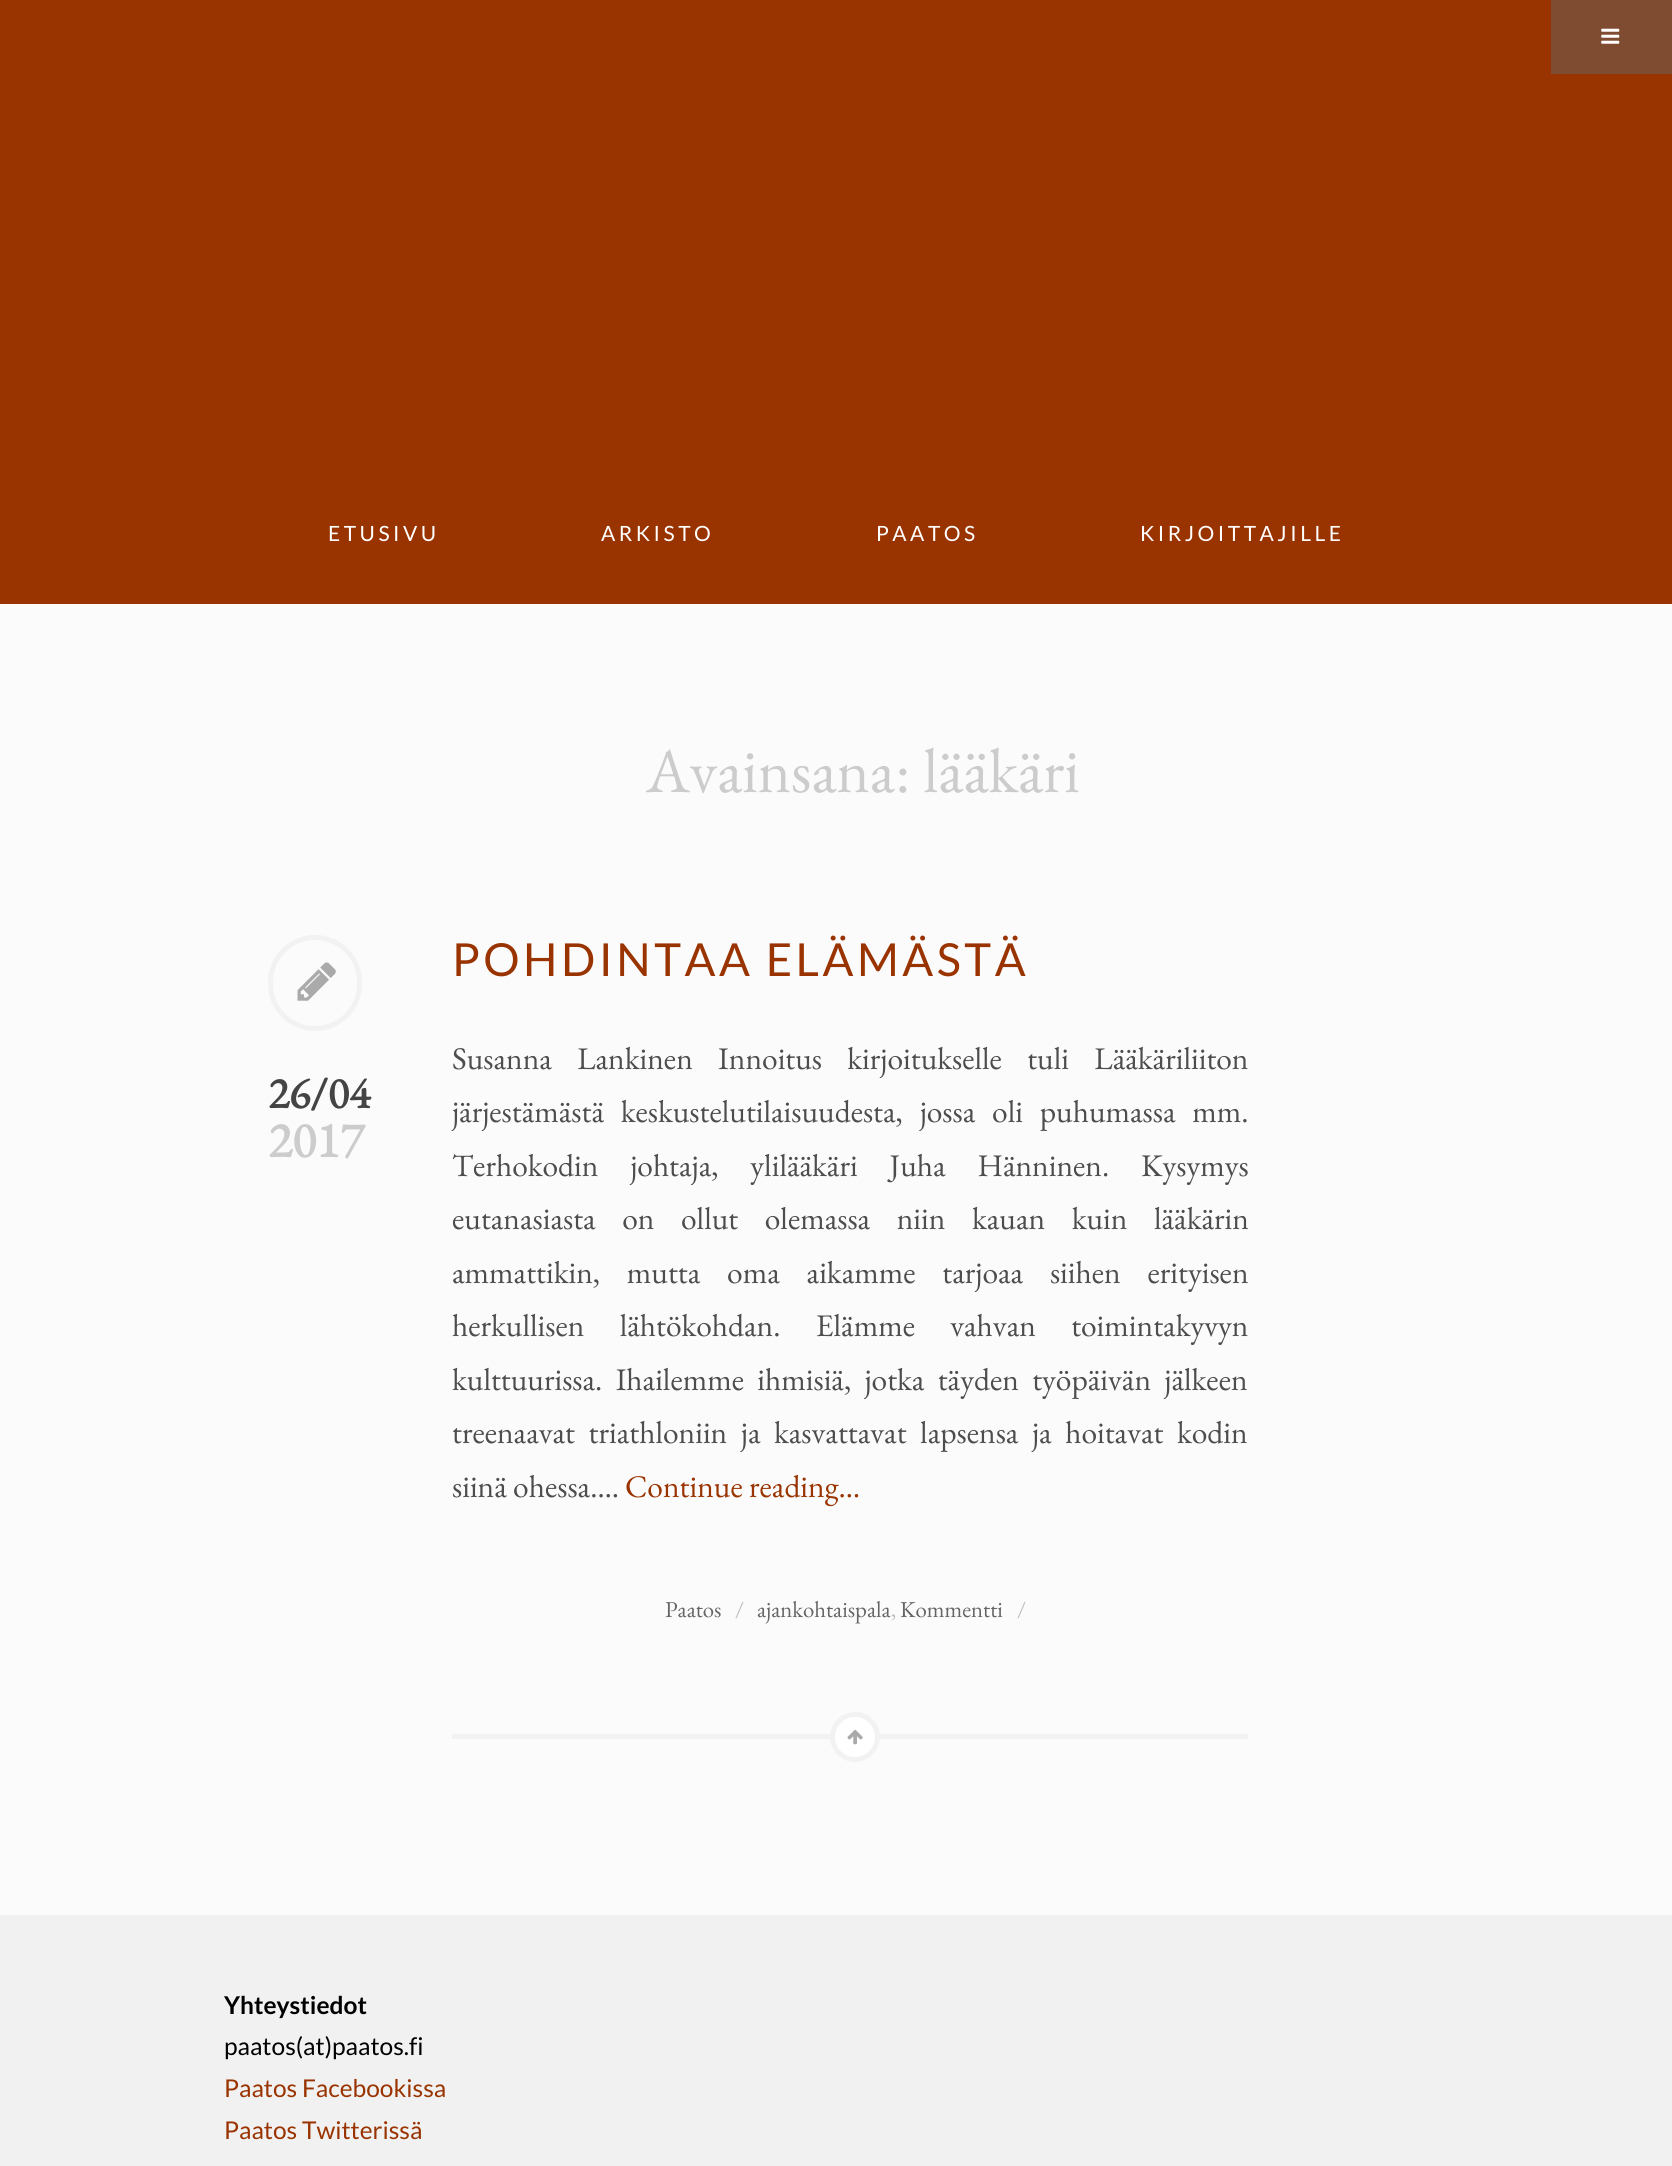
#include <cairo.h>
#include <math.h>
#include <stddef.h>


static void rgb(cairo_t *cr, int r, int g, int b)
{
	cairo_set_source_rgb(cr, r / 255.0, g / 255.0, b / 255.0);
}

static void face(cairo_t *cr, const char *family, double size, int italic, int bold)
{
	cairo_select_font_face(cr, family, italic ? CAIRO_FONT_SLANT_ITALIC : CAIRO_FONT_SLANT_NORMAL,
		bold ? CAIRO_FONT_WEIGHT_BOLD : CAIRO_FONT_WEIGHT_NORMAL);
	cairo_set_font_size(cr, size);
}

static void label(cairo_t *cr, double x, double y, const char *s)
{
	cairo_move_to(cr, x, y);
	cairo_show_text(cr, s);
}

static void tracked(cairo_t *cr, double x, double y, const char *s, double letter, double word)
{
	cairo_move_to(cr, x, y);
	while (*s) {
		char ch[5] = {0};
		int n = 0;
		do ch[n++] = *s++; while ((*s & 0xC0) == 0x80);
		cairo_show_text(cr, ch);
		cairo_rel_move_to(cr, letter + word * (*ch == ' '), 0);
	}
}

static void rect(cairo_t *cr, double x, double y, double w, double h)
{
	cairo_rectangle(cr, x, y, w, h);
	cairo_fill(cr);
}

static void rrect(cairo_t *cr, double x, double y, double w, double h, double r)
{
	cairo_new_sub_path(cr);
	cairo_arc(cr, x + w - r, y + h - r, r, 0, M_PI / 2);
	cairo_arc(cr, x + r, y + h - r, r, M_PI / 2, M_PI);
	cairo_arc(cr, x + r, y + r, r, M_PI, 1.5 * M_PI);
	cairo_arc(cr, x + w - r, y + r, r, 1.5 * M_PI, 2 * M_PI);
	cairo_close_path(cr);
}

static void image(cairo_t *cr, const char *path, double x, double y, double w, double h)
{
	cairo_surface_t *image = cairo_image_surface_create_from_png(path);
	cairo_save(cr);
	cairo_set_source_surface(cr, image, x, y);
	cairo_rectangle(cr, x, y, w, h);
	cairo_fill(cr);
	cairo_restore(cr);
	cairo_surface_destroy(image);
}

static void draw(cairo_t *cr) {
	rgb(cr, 251, 251, 251);
	cairo_paint(cr);
	rgb(cr, 153, 51, 0);
	rect(cr, 0, 0, 1672, 604);
	rgb(cr, 127, 76, 50);
	rect(cr, 1551, 0, 121, 74);
	image(cr, "image0.png", 1601, 28, 19, 16);
	face(cr, "Lato", 21, 0, 0);
	rgb(cr, 255, 255, 255);
	tracked(cr, 328, 541, "ETUSIVU", 3.5, 0);
	tracked(cr, 601, 541, "ARKISTO", 3.5, 0);
	tracked(cr, 876, 541, "PAATOS", 3.5, 0);
	tracked(cr, 1140, 541, "KIRJOITTAJILLE", 3.5, 0);
	face(cr, "EB Garamond", 63, 0, 0);
	rgb(cr, 204, 204, 204);
	label(cr, 646, 792, "Avainsana: lääkäri");
	rrect(cr, 270.5, 937.5, 89, 91, 44.5);
	rgb(cr, 242, 242, 242);
	cairo_set_line_width(cr, 5);
	cairo_stroke(cr);
	image(cr, "image1.png", 297, 962, 39, 39);
	face(cr, "Lato", 45.5, 0, 0);
	rgb(cr, 153, 51, 0);
	tracked(cr, 452, 976, "POHDINTAA ELÄMÄSTÄ", 3.5, 0);
	face(cr, "EB Garamond", 44, 0, 1);
	rgb(cr, 68, 68, 68);
	label(cr, 268, 1108, "26/04");
	face(cr, "EB Garamond", 50, 0, 1);
	rgb(cr, 204, 204, 204);
	label(cr, 268, 1157, "2017");
	face(cr, "EB Garamond", 31.5, 0, 0);
	rgb(cr, 77, 77, 77);
	tracked(cr, 452, 1069, "Susanna Lankinen Innoitus kirjoitukselle tuli Lääkäriliiton", 0, 19);
	tracked(cr, 452, 1122, "järjestämästä keskustelutilaisuudesta, jossa oli puhumassa mm.", 0, 10.5);
	tracked(cr, 452, 1176, "Terhokodin johtaja, ylilääkäri Juha Hänninen. Kysymys", 0, 25.5);
	tracked(cr, 452, 1229, "eutanasiasta on ollut olemassa niin kauan kuin lääkärin", 0, 20.25);
	tracked(cr, 452, 1283, "ammattikin, mutta oma aikamme tarjoaa siihen erityisen", 0, 20.5);
	tracked(cr, 452, 1336, "herkullisen lähtökohdan. Elämme vahvan toimintakyvyn", 0, 29);
	tracked(cr, 452, 1390, "kulttuurissa. Ihailemme ihmisiä, jotka täyden työpäivän jälkeen", 0, 7);
	tracked(cr, 452, 1443, "treenaavat triathloniin ja kasvattavat lapsensa ja hoitavat kodin", 0, 7.25);
	label(cr, 452, 1497, "siinä ohessa….");
	rgb(cr, 153, 51, 0);
	label(cr, 625, 1497, "Continue reading…");
	face(cr, "EB Garamond", 22.75, 0, 0);
	rgb(cr, 101, 101, 101);
	label(cr, 665, 1617, "Paatos");
	rgb(cr, 188, 188, 188);
	label(cr, 735, 1617, "/");
	rgb(cr, 101, 101, 101);
	label(cr, 757, 1617, "ajankohtaispala");
	rgb(cr, 188, 188, 188);
	label(cr, 891, 1617, ",");
	rgb(cr, 101, 101, 101);
	label(cr, 900, 1617, "Kommentti");
	rgb(cr, 188, 188, 188);
	label(cr, 1017, 1617, "/");
	rgb(cr, 242, 242, 242);
	rect(cr, 452, 1734, 796, 5);
	rgb(cr, 255, 255, 255);
	cairo_new_path(cr);
	cairo_arc(cr, 855, 1737, 22.5, 0, 2 * M_PI);
	cairo_fill_preserve(cr);
	rgb(cr, 242, 242, 242);
	cairo_stroke(cr);
	image(cr, "image2.png", 847, 1729, 16, 16);
	rgb(cr, 241, 241, 241);
	rect(cr, 0, 1915, 1672, 251);
	face(cr, "Lato", 24.5, 0, 1);
	rgb(cr, 0, 0, 0);
	label(cr, 224, 2014, "Yhteystiedot");
	face(cr, "Lato", 24.5, 0, 0);
	label(cr, 224, 2055, "paatos(at)paatos.fi");
	rgb(cr, 153, 51, 0);
	label(cr, 224, 2097, "Paatos Facebookissa");
	label(cr, 224, 2139, "Paatos Twitterissä");
}

int main(void) {
	cairo_surface_t *surface = cairo_image_surface_create(CAIRO_FORMAT_RGB24, 1672, 2166);
	cairo_t *cr = cairo_create(surface);
	cairo_font_options_t *options = cairo_font_options_create();
	cairo_font_options_set_hint_metrics(options, CAIRO_HINT_METRICS_OFF);
	cairo_font_options_set_hint_style(options, CAIRO_HINT_STYLE_NONE);
	cairo_set_font_options(cr, options);
	cairo_set_miter_limit(cr, 4);
	draw(cr);
	cairo_surface_write_to_png(surface, "render.png");
	cairo_font_options_destroy(options);
	cairo_destroy(cr);
	cairo_surface_destroy(surface);
	return 0;
}
